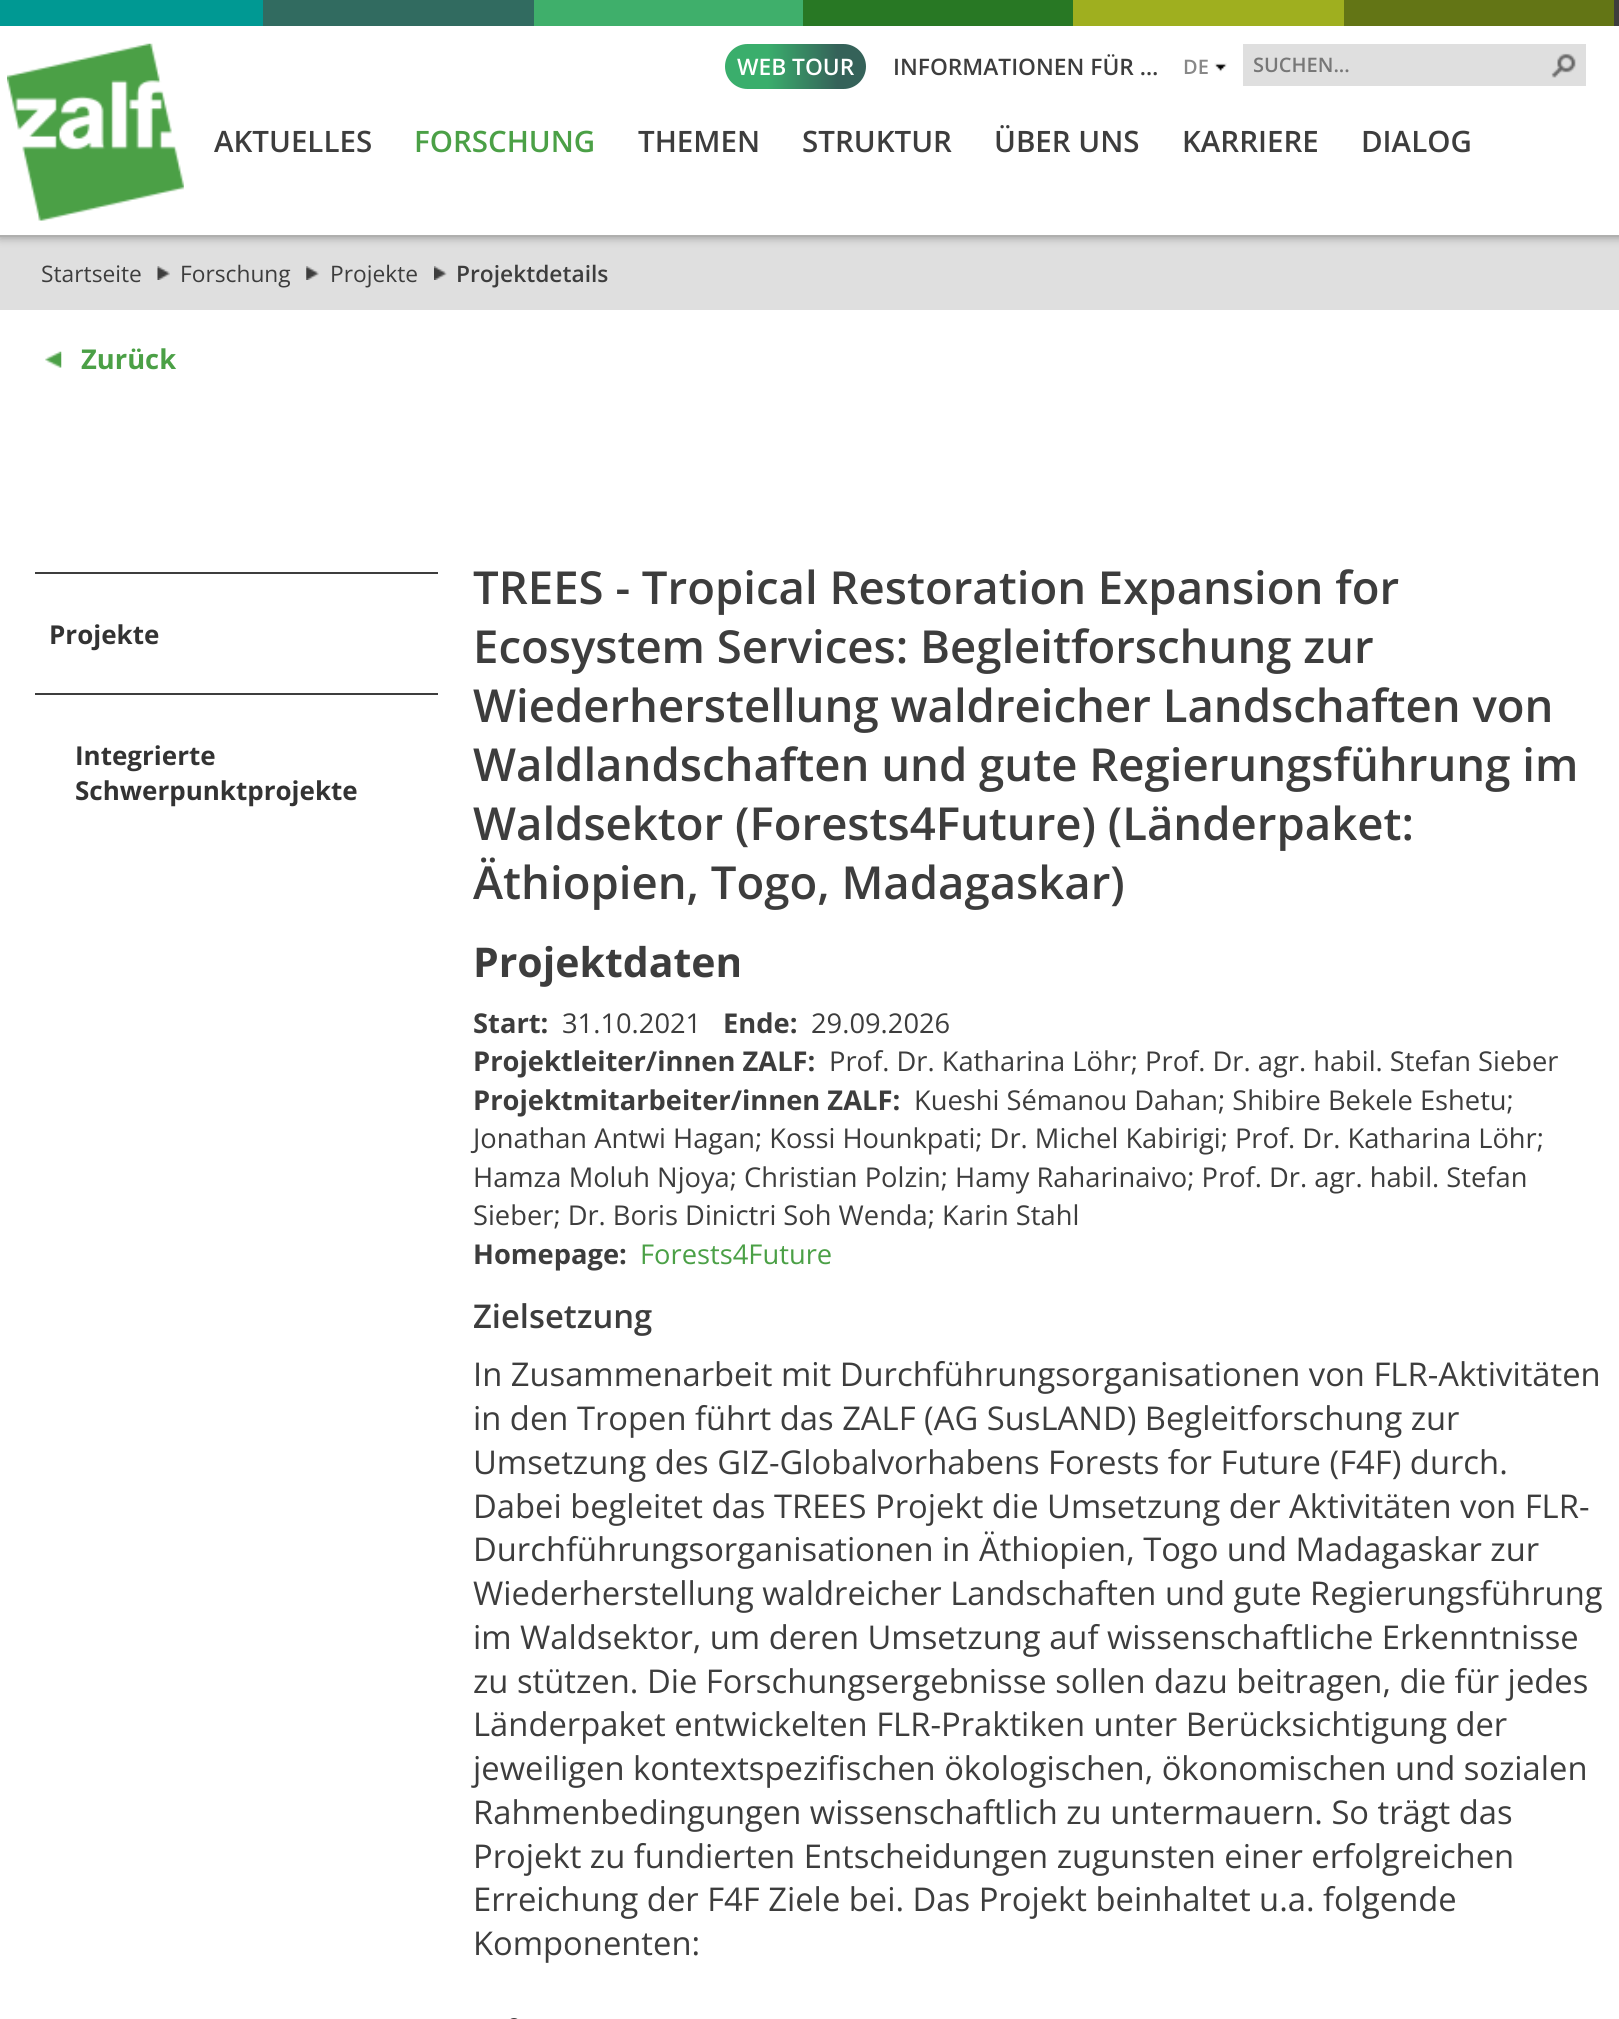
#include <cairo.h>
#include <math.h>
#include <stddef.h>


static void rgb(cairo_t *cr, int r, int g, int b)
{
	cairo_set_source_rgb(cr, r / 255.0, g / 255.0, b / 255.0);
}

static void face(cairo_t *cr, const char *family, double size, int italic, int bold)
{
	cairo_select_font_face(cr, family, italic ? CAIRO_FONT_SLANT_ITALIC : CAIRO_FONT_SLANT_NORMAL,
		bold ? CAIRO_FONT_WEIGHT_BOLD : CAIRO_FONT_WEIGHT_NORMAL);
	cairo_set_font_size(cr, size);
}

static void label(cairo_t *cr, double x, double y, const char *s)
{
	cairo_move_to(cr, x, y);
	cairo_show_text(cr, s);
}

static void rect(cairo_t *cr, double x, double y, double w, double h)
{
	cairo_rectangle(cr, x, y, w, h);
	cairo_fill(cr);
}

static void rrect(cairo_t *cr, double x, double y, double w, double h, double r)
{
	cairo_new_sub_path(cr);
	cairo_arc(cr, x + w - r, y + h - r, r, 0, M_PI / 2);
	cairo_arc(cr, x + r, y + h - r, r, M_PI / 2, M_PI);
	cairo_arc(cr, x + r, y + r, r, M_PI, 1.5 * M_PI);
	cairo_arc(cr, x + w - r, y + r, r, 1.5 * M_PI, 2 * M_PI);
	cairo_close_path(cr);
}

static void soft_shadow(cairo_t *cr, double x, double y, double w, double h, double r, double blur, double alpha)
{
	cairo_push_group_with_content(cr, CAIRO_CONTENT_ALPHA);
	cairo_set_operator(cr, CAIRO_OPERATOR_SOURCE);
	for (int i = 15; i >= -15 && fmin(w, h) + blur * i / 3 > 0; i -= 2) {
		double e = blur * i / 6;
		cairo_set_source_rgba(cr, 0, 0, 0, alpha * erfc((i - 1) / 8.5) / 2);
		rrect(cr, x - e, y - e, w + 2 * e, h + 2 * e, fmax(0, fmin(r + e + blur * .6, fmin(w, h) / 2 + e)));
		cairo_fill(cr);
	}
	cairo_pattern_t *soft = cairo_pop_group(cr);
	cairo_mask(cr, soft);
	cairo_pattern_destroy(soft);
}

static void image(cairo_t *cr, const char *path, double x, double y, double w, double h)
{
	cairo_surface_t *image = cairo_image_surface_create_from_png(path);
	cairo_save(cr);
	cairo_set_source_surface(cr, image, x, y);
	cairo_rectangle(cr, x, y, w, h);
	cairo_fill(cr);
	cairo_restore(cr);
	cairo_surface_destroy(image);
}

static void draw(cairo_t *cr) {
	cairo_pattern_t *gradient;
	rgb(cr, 255, 255, 255);
	cairo_paint(cr);
	rgb(cr, 61, 61, 61);
	rect(cr, 1614, 0, 5, 26);
	rgb(cr, 0, 153, 147);
	rect(cr, 0, 0, 263, 26);
	rgb(cr, 49, 107, 96);
	rect(cr, 263, 0, 271, 26);
	rgb(cr, 63, 175, 107);
	rect(cr, 534, 0, 269, 26);
	rgb(cr, 40, 120, 36);
	rect(cr, 803, 0, 270, 26);
	rgb(cr, 159, 175, 31);
	rect(cr, 1073, 0, 271, 26);
	rgb(cr, 99, 117, 21);
	rect(cr, 1344, 0, 270, 26);
	image(cr, "image0.png", 7, 43, 177, 178);
	gradient = cairo_pattern_create_linear(725, 67, 866, 67);
	cairo_pattern_add_color_stop_rgba(gradient, 0.3, 0.227, 0.682, 0.424, 1);
	cairo_pattern_add_color_stop_rgba(gradient, 0.8, 0.208, 0.384, 0.349, 1);
	cairo_set_source(cr, gradient);
	cairo_pattern_destroy(gradient);
	rrect(cr, 725, 44, 141, 45, 22.5);
	cairo_fill(cr);
	face(cr, "Open Sans SemiBold", 22.75, 0, 0);
	rgb(cr, 255, 255, 255);
	label(cr, 737, 75, "WEB TOUR");
	rgb(cr, 61, 61, 61);
	label(cr, 893, 75, "INFORMATIONEN FÜR …");
	face(cr, "Open Sans SemiBold", 20, 0, 0);
	rgb(cr, 136, 136, 136);
	label(cr, 1183, 74, "DE");
	image(cr, "image1.png", 1214, 63, 13, 9);
	rgb(cr, 223, 223, 223);
	rect(cr, 1243, 44, 343, 42);
	rgb(cr, 119, 119, 119);
	label(cr, 1253, 72, "SUCHEN...");
	image(cr, "image2.png", 1551, 53, 25, 25);
	face(cr, "Open Sans SemiBold", 29.5, 0, 0);
	rgb(cr, 61, 61, 61);
	label(cr, 214, 152, "AKTUELLES");
	rgb(cr, 75, 160, 70);
	label(cr, 414, 152, "FORSCHUNG");
	rgb(cr, 61, 61, 61);
	label(cr, 638, 152, "THEMEN");
	label(cr, 802, 152, "STRUKTUR");
	label(cr, 994, 152, "ÜBER UNS");
	label(cr, 1182, 152, "KARRIERE");
	label(cr, 1361, 152, "DIALOG");
	rgb(cr, 223, 223, 223);
	rect(cr, 0, 237, 1619, 73);
	cairo_save(cr);
	cairo_rectangle(cr, 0, 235, 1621, 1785);
	cairo_clip(cr);
	rgb(cr, 0, 0, 0);
	soft_shadow(cr, 0, 233, 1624, 5, 0, 4.5, 0.3);
	cairo_restore(cr);
	rgb(cr, 175, 175, 174);
	rect(cr, 0, 235, 1619, 2);
	image(cr, "image3.png", 157, 266, 13, 14);
	face(cr, "Open Sans", 22.75, 0, 0);
	rgb(cr, 61, 61, 61);
	label(cr, 41, 282, "Startseite");
	image(cr, "image4.png", 306, 266, 13, 14);
	label(cr, 180, 282, "Forschung");
	image(cr, "image5.png", 434, 266, 13, 14);
	label(cr, 330, 282, "Projekte");
	face(cr, "Open Sans SemiBold", 22.75, 0, 0);
	label(cr, 456, 282, "Projektdetails");
	image(cr, "image6.png", 45, 351, 17, 17);
	face(cr, "Open Sans", 27.3, 0, 1);
	rgb(cr, 75, 160, 70);
	label(cr, 81, 369, "Zurück");
	face(cr, "Open Sans SemiBold", 45.5, 0, 0);
	rgb(cr, 61, 61, 61);
	label(cr, 473, 604, "TREES - Tropical Restoration Expansion for");
	label(cr, 473, 663, "Ecosystem Services: Begleitforschung zur");
	label(cr, 473, 722, "Wiederherstellung waldreicher Landschaften von");
	label(cr, 473, 781, "Waldlandschaften und gute Regierungsführung im");
	label(cr, 473, 840, "Waldsektor (Forests4Future) (Länderpaket:");
	label(cr, 473, 899, "Äthiopien, Togo, Madagaskar)");
	face(cr, "Open Sans", 41, 0, 1);
	label(cr, 473, 977, "Projektdaten");
	face(cr, "Open Sans", 27.3, 0, 1);
	label(cr, 473, 1033, "Start:");
	face(cr, "Open Sans", 27.3, 0, 0);
	label(cr, 562, 1033, "31.10.2021");
	face(cr, "Open Sans", 27.3, 0, 1);
	label(cr, 723, 1033, "Ende:");
	face(cr, "Open Sans", 27.3, 0, 0);
	label(cr, 811, 1033, "29.09.2026");
	face(cr, "Open Sans", 27.3, 0, 1);
	label(cr, 473, 1071, "Projektleiter/innen ZALF:");
	face(cr, "Open Sans", 27.3, 0, 0);
	label(cr, 829, 1071, "Prof. Dr. Katharina Löhr; Prof. Dr. agr. habil. Stefan Sieber");
	face(cr, "Open Sans", 27.3, 0, 1);
	label(cr, 473, 1110, "Projektmitarbeiter/innen ZALF:");
	face(cr, "Open Sans", 27.3, 0, 0);
	label(cr, 914, 1110, "Kueshi Sémanou Dahan; Shibire Bekele Eshetu;");
	label(cr, 473, 1148, "Jonathan Antwi Hagan; Kossi Hounkpati; Dr. Michel Kabirigi; Prof. Dr. Katharina Löhr;");
	label(cr, 473, 1187, "Hamza Moluh Njoya; Christian Polzin; Hamy Raharinaivo; Prof. Dr. agr. habil. Stefan");
	label(cr, 473, 1225, "Sieber; Dr. Boris Dinictri Soh Wenda; Karin Stahl");
	face(cr, "Open Sans", 27.3, 0, 1);
	label(cr, 473, 1264, "Homepage:");
	face(cr, "Open Sans", 27.3, 0, 0);
	rgb(cr, 75, 160, 70);
	label(cr, 640, 1264, "Forests4Future");
	face(cr, "Open Sans SemiBold", 32.75, 0, 0);
	rgb(cr, 61, 61, 61);
	label(cr, 473, 1328, "Zielsetzung");
	face(cr, "Open Sans", 32.75, 0, 0);
	label(cr, 473, 1386, "In Zusammenarbeit mit Durchführungsorganisationen von FLR-Aktivitäten");
	label(cr, 473, 1430, "in den Tropen führt das ZALF (AG SusLAND) Begleitforschung zur");
	label(cr, 473, 1474, "Umsetzung des GIZ-Globalvorhabens Forests for Future (F4F) durch.");
	label(cr, 473, 1518, "Dabei begleitet das TREES Projekt die Umsetzung der Aktivitäten von FLR-");
	label(cr, 473, 1561, "Durchführungsorganisationen in Äthiopien, Togo und Madagaskar zur");
	label(cr, 473, 1605, "Wiederherstellung waldreicher Landschaften und gute Regierungsführung");
	label(cr, 473, 1649, "im Waldsektor, um deren Umsetzung auf wissenschaftliche Erkenntnisse");
	label(cr, 473, 1693, "zu stützen. Die Forschungsergebnisse sollen dazu beitragen, die für jedes");
	label(cr, 473, 1736, "Länderpaket entwickelten FLR-Praktiken unter Berücksichtigung der");
	label(cr, 473, 1780, "jeweiligen kontextspezifischen ökologischen, ökonomischen und sozialen");
	label(cr, 473, 1824, "Rahmenbedingungen wissenschaftlich zu untermauern. So trägt das");
	label(cr, 473, 1868, "Projekt zu fundierten Entscheidungen zugunsten einer erfolgreichen");
	label(cr, 473, 1911, "Erreichung der F4F Ziele bei. Das Projekt beinhaltet u.a. folgende");
	label(cr, 473, 1955, "Komponenten:");
	cairo_new_path(cr);
	cairo_move_to(cr, 514, 2018);
	cairo_curve_to(cr, 517.5, 2018, 520, 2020.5, 520, 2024);
	cairo_line_to(cr, 520, 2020);
	cairo_line_to(cr, 508, 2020);
	cairo_line_to(cr, 508, 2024);
	cairo_curve_to(cr, 508, 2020.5, 510.5, 2018, 514, 2018);
	cairo_close_path(cr);
	cairo_fill(cr);
	rect(cr, 35, 572, 403, 2);
	face(cr, "Open Sans", 26, 0, 1);
	rgb(cr, 51, 51, 51);
	label(cr, 49, 644, "Projekte");
	rgb(cr, 61, 61, 61);
	rect(cr, 35, 693, 403, 2);
	rgb(cr, 51, 51, 51);
	label(cr, 75, 765, "Integrierte");
	label(cr, 75, 800, "Schwerpunktprojekte");
}

int main(void) {
	cairo_surface_t *surface = cairo_image_surface_create(CAIRO_FORMAT_RGB24, 1619, 2019);
	cairo_t *cr = cairo_create(surface);
	cairo_font_options_t *options = cairo_font_options_create();
	cairo_font_options_set_hint_metrics(options, CAIRO_HINT_METRICS_OFF);
	cairo_font_options_set_hint_style(options, CAIRO_HINT_STYLE_NONE);
	cairo_set_font_options(cr, options);
	cairo_set_miter_limit(cr, 4);
	draw(cr);
	cairo_surface_write_to_png(surface, "render.png");
	cairo_font_options_destroy(options);
	cairo_destroy(cr);
	cairo_surface_destroy(surface);
	return 0;
}
